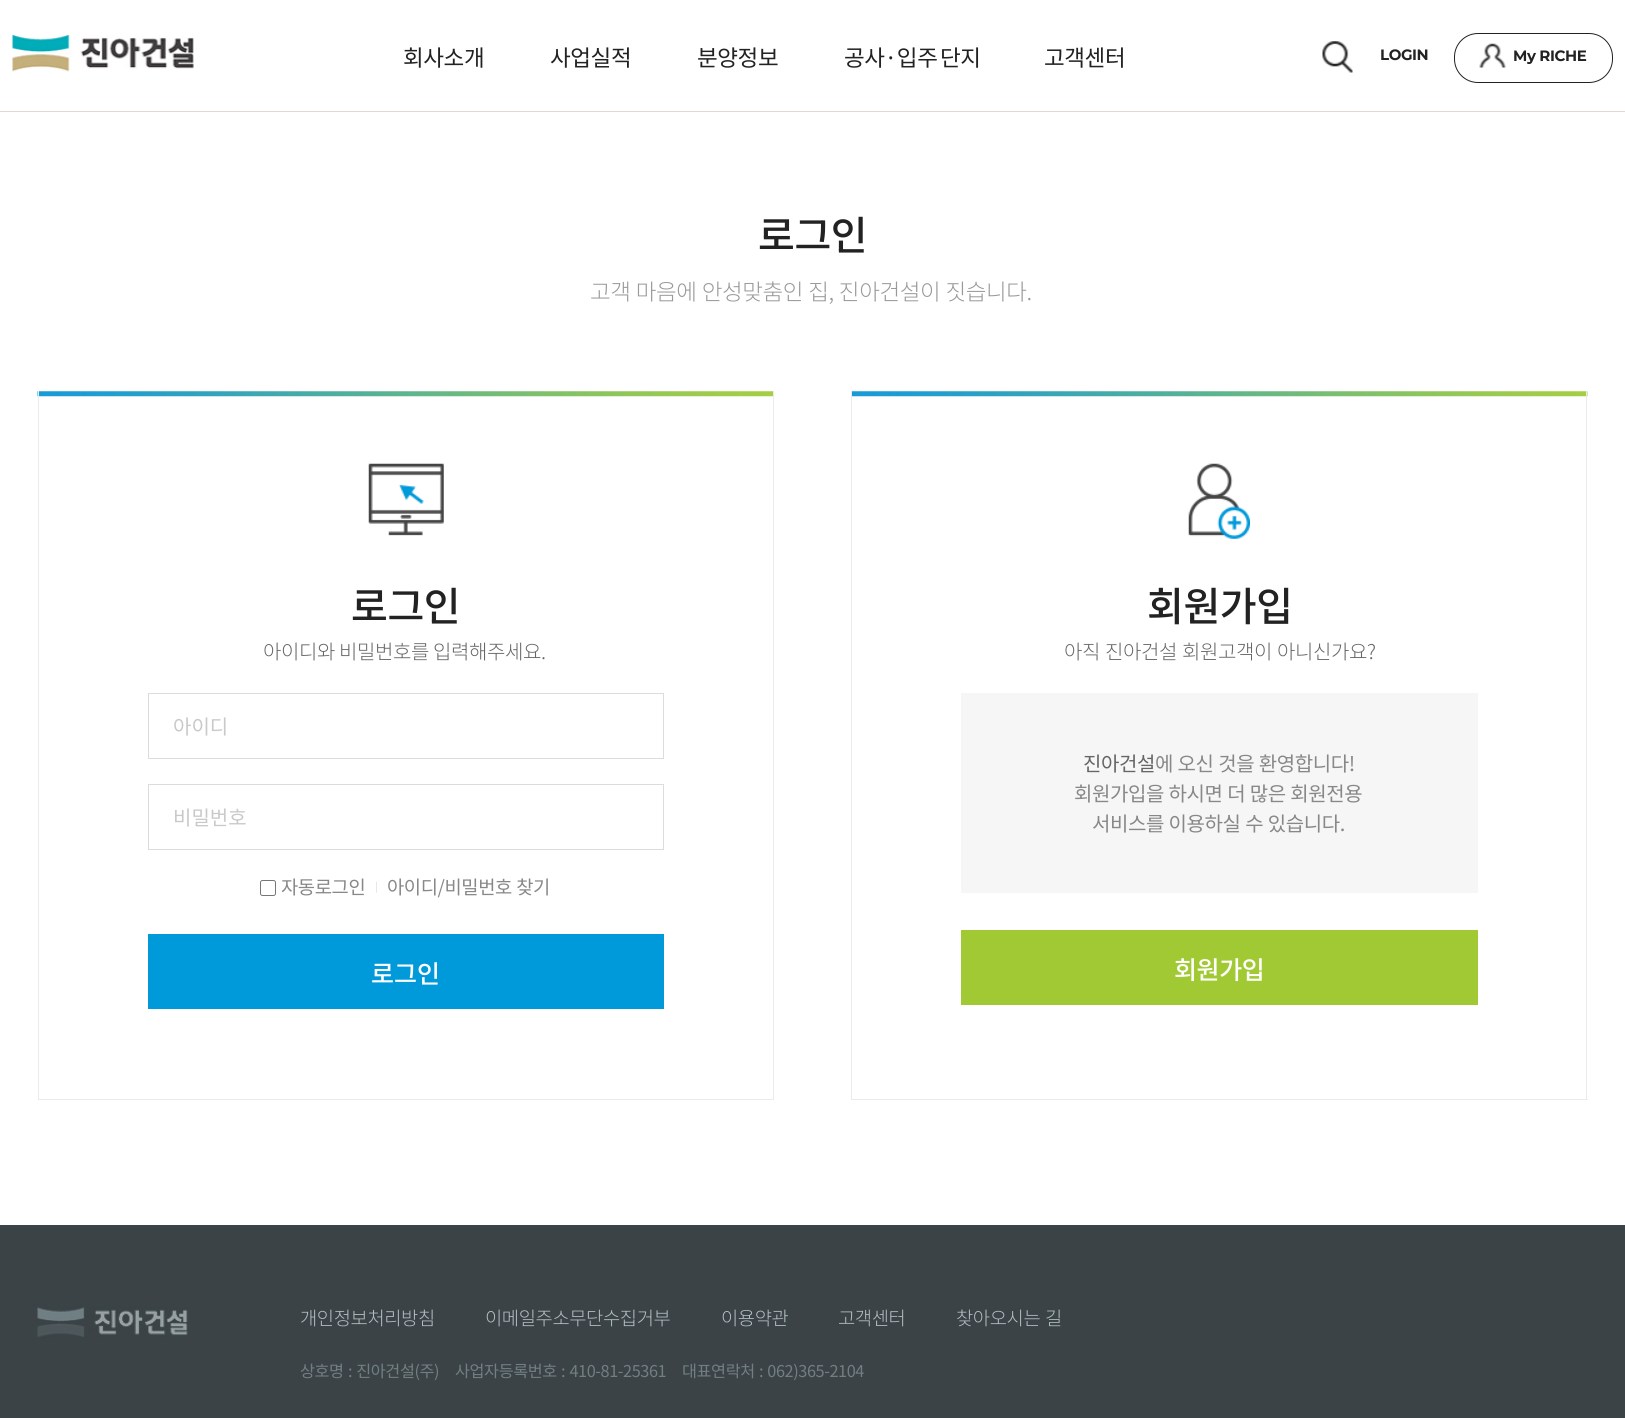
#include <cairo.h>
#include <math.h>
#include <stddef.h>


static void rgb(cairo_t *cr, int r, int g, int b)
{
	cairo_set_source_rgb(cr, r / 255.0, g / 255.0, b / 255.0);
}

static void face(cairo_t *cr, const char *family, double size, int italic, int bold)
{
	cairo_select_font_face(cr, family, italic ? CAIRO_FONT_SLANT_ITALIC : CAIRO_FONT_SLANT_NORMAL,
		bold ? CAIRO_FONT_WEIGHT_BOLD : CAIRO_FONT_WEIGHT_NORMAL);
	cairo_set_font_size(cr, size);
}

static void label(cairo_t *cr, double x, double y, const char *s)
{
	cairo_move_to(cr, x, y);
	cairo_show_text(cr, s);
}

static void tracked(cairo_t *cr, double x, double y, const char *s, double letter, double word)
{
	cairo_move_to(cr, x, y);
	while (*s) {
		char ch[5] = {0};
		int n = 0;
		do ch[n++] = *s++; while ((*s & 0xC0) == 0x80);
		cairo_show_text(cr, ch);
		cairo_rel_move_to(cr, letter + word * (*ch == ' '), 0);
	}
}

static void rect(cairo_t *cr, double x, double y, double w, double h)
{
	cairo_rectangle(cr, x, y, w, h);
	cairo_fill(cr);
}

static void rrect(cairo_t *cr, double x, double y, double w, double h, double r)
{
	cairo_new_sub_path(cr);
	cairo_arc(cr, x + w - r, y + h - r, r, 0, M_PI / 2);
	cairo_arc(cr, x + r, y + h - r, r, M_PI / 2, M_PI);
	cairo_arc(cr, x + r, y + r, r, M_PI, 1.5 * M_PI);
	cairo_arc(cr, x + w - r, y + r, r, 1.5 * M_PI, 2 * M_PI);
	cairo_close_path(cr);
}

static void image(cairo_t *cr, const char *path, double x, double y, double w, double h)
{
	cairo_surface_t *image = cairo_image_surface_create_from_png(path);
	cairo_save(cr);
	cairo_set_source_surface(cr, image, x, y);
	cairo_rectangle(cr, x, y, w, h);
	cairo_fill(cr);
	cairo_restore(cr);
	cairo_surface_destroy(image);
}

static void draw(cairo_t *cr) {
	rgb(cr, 255, 255, 255);
	cairo_paint(cr);
	image(cr, "image0.png", 12, 35, 182, 37);
	face(cr, "Noto Sans KR", 22.5, 0, 0);
	rgb(cr, 34, 34, 34);
	tracked(cr, 403, 66, "회사소개", -0.4, 0);
	tracked(cr, 550, 66, "사업실적", -0.4, 0);
	tracked(cr, 697, 66, "분양정보", -0.4, 0);
	tracked(cr, 844, 66, "공사·입주 단지", -0.4, -2);
	tracked(cr, 1044, 66, "고객센터", -0.4, 0);
	image(cr, "image1.png", 1322, 41, 31, 32);
	face(cr, "Montserrat", 15, 0, 1);
	tracked(cr, 1380, 60, "LOGIN", -0.4, 0);
	rrect(cr, 1454.5, 33.5, 158, 49, 23.5);
	cairo_set_line_width(cr, 1);
	cairo_stroke(cr);
	image(cr, "image2.png", 1479, 43, 27, 25);
	tracked(cr, 1513, 61, "My RICHE", -0.4, 0);
	rgb(cr, 230, 214, 214);
	rect(cr, 0, 111, 1625, 1);
	face(cr, "Noto Sans KR Medium", 40, 0, 0);
	rgb(cr, 34, 34, 34);
	tracked(cr, 758, 250, "로그인", -0.4, 0);
	face(cr, "Noto Sans KR Light", 22.5, 0, 0);
	rgb(cr, 153, 153, 153);
	tracked(cr, 590, 300, "고객 마음에 안성맞춤인 집, 진아건설이 짓습니다.", -0.4, 0.5);
	image(cr, "image3.png", 37, 391, 736, 6);
	rgb(cr, 235, 235, 235);
	rect(cr, 773, 391, 1, 709);
	rect(cr, 38, 1099, 736, 1);
	rect(cr, 38, 391, 1, 709);
	image(cr, "image4.png", 368, 463, 76, 73);
	face(cr, "Noto Sans KR Medium", 40, 0, 0);
	rgb(cr, 34, 34, 34);
	tracked(cr, 351, 621, "로그인", -0.4, 0);
	face(cr, "Noto Sans KR Light", 20, 0, 0);
	rgb(cr, 102, 102, 102);
	tracked(cr, 263, 659, "아이디와 비밀번호를 입력해주세요.", -0.4, 0);
	cairo_rectangle(cr, 148.5, 693.5, 515, 65);
	rgb(cr, 220, 220, 220);
	cairo_stroke(cr);
	face(cr, "Noto Sans KR", 20, 0, 0);
	rgb(cr, 201, 201, 201);
	label(cr, 173, 734, "아이디");
	cairo_rectangle(cr, 148.5, 784.5, 515, 65);
	rgb(cr, 220, 220, 220);
	cairo_stroke(cr);
	rgb(cr, 201, 201, 201);
	label(cr, 173, 825, "비밀번호");
	rrect(cr, 260.5, 880.5, 15, 15, 2);
	rgb(cr, 118, 118, 118);
	cairo_stroke(cr);
	face(cr, "Noto Sans KR", 18.75, 0, 0);
	rgb(cr, 136, 136, 136);
	tracked(cr, 281, 894, "자동로그인", -0.4, 0);
	face(cr, "Noto Sans KR", 10, 0, 0);
	rgb(cr, 220, 220, 220);
	tracked(cr, 375, 890, "|", -0.4, 0);
	face(cr, "Noto Sans KR", 18.75, 0, 0);
	rgb(cr, 136, 136, 136);
	tracked(cr, 387, 894, "아이디/비밀번호 찾기", -0.4, 0.5);
	rgb(cr, 0, 153, 218);
	rect(cr, 148, 934, 516, 75);
	face(cr, "Noto Sans KR Medium", 25, 0, 0);
	rgb(cr, 255, 255, 255);
	label(cr, 371, 983, "로그인");
	image(cr, "image5.png", 852, 391, 736, 6);
	rgb(cr, 235, 235, 235);
	rect(cr, 1586, 391, 1, 709);
	rect(cr, 851, 1099, 737, 1);
	rect(cr, 851, 391, 1, 709);
	image(cr, "image6.png", 1188, 463, 62, 76);
	face(cr, "Noto Sans KR Medium", 40, 0, 0);
	rgb(cr, 34, 34, 34);
	tracked(cr, 1147, 621, "회원가입", -0.4, 0);
	face(cr, "Noto Sans KR Light", 20, 0, 0);
	rgb(cr, 102, 102, 102);
	tracked(cr, 1064, 659, "아직 진아건설 회원고객이 아니신가요?", -0.4, 1);
	rgb(cr, 246, 246, 246);
	rect(cr, 961, 693, 517, 200);
	face(cr, "Noto Sans KR", 20, 0, 0);
	rgb(cr, 102, 102, 102);
	tracked(cr, 1083, 771, "진아건설", -0.4, 0);
	rgb(cr, 136, 136, 136);
	tracked(cr, 1155, 771, "에 오신 것을 환영합니다!", -0.4, 0.5);
	tracked(cr, 1074, 801, "회원가입을 하시면 더 많은 회원전용", -0.4, 0.5);
	tracked(cr, 1092, 831, "서비스를 이용하실 수 있습니다.", -0.4, 0.5);
	rgb(cr, 161, 201, 51);
	rect(cr, 961, 930, 517, 75);
	face(cr, "Noto Sans KR Medium", 25, 0, 0);
	rgb(cr, 255, 255, 255);
	tracked(cr, 1174, 979, "회원가입", -0.4, 0);
	rgb(cr, 59, 67, 70);
	rect(cr, 0, 1225, 1625, 193);
	image(cr, "image7.png", 37, 1307, 151, 31);
	face(cr, "Noto Sans KR Light", 18.75, 0, 0);
	rgb(cr, 179, 192, 197);
	tracked(cr, 300, 1325, "개인정보처리방침", -0.4, 0);
	tracked(cr, 485, 1325, "이메일주소무단수집거부", -0.4, 0);
	tracked(cr, 721, 1325, "이용약관", -0.4, 0);
	tracked(cr, 838, 1325, "고객센터", -0.4, 0);
	tracked(cr, 956, 1325, "찾아오시는 길", -0.4, 1);
	face(cr, "Noto Sans KR", 16.25, 0, 0);
	rgb(cr, 113, 126, 131);
	tracked(cr, 300, 1377, "상호명 : 진아건설(주)", -0.4, 1);
	tracked(cr, 455, 1377, "사업자등록번호 : 410-81-25361", -0.4, 1);
	tracked(cr, 682, 1377, "대표연락처 : 062)365-2104", -0.4, 1);
}

int main(void) {
	cairo_surface_t *surface = cairo_image_surface_create(CAIRO_FORMAT_RGB24, 1625, 1418);
	cairo_t *cr = cairo_create(surface);
	cairo_font_options_t *options = cairo_font_options_create();
	cairo_font_options_set_hint_metrics(options, CAIRO_HINT_METRICS_OFF);
	cairo_font_options_set_hint_style(options, CAIRO_HINT_STYLE_NONE);
	cairo_set_font_options(cr, options);
	cairo_set_miter_limit(cr, 4);
	draw(cr);
	cairo_surface_write_to_png(surface, "render.png");
	cairo_font_options_destroy(options);
	cairo_destroy(cr);
	cairo_surface_destroy(surface);
	return 0;
}
